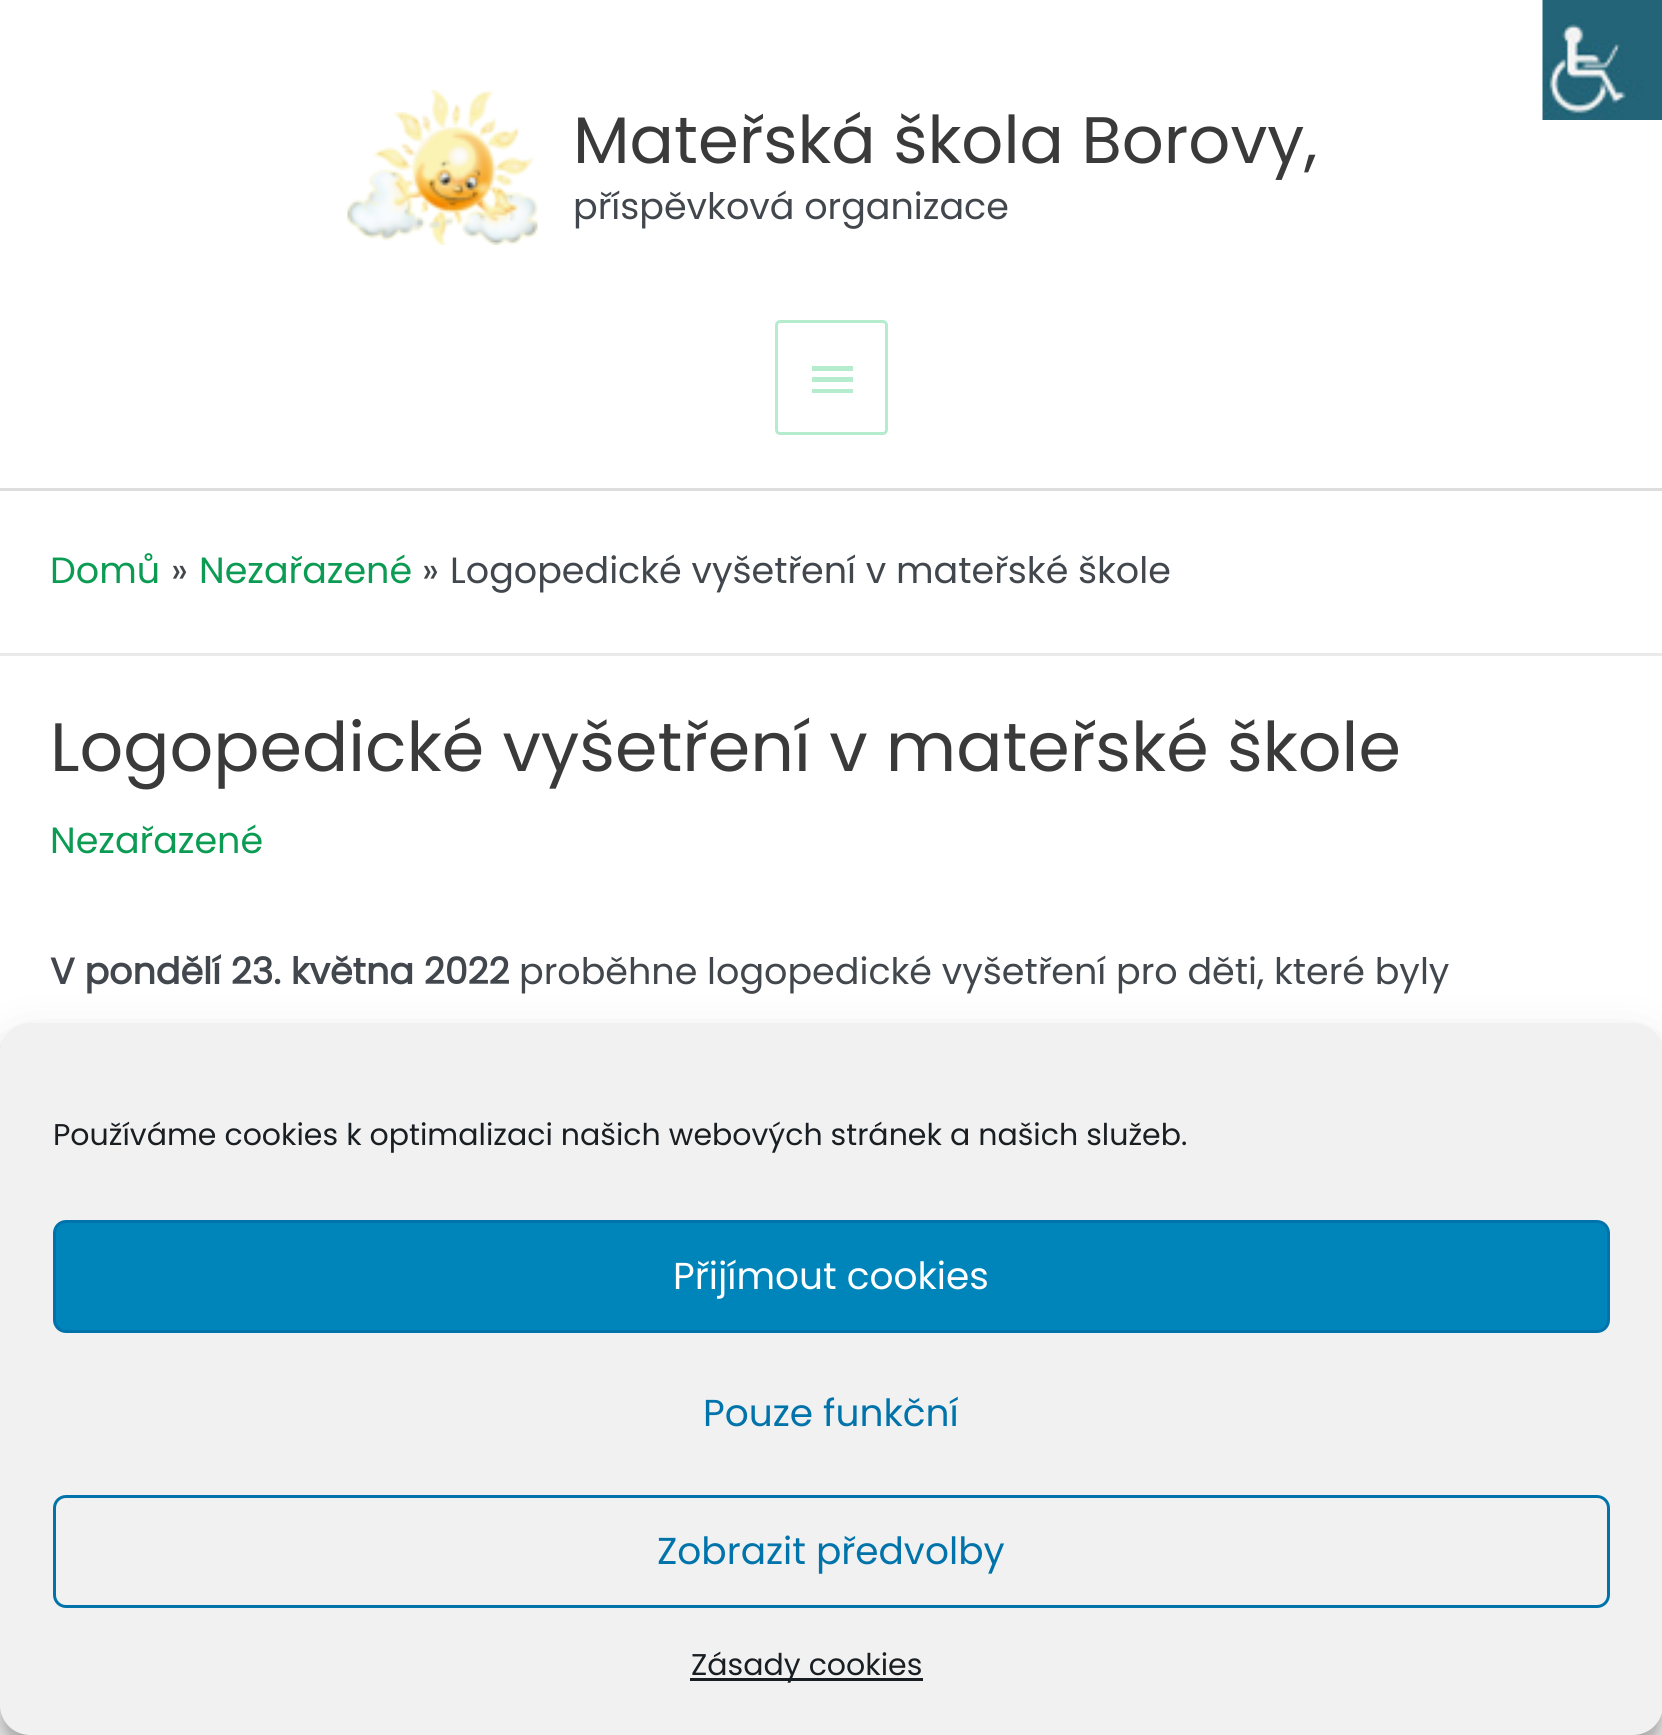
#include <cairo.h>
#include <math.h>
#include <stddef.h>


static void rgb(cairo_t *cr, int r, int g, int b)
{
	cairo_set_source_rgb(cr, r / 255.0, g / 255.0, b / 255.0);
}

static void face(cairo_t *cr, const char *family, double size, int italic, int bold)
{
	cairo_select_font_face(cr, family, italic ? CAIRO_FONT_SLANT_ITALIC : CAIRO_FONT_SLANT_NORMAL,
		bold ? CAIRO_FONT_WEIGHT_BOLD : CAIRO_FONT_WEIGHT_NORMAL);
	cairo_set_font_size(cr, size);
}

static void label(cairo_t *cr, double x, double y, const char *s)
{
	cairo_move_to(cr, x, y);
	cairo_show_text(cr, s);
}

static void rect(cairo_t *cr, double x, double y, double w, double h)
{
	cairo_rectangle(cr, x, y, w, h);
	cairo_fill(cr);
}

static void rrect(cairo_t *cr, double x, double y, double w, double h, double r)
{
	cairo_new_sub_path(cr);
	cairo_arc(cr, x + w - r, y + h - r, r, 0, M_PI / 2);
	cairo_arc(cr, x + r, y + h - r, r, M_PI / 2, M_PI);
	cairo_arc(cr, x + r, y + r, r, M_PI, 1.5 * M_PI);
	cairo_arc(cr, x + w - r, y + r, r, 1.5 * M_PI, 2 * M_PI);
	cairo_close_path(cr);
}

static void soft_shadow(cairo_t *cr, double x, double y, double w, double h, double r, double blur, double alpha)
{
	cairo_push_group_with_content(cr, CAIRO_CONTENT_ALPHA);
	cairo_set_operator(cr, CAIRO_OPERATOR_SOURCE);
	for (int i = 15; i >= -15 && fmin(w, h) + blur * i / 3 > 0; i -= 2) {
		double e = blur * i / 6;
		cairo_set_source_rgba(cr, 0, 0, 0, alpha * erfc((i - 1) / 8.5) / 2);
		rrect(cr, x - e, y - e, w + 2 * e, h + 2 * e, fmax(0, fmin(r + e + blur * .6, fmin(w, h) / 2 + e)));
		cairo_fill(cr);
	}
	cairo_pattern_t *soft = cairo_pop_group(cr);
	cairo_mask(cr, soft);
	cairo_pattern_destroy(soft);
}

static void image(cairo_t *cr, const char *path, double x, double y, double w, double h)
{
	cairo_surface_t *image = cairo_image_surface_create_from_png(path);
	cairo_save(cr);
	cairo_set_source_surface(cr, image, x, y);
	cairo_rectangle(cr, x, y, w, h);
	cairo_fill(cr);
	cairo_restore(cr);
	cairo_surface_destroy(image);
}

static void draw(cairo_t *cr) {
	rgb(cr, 255, 255, 255);
	cairo_paint(cr);
	image(cr, "image0.png", 1542, 0, 120, 120);
	rgb(cr, 221, 221, 221);
	rect(cr, 0, 488, 1662, 3);
	image(cr, "image1.png", 347, 90, 191, 155);
	face(cr, "Poppins", 65.7, 0, 0);
	rgb(cr, 58, 58, 58);
	label(cr, 573, 163, "Mateřská škola Borovy,");
	face(cr, "Poppins", 36.5, 0, 0);
	rgb(cr, 65, 71, 76);
	label(cr, 573, 219, "příspěvková organizace");
	rrect(cr, 776.5, 321.5, 110, 112, 3.5);
	rgb(cr, 180, 236, 205);
	cairo_set_line_width(cr, 3);
	cairo_stroke(cr);
	cairo_new_path(cr);
	cairo_move_to(cr, 812, 366);
	cairo_line_to(cr, 853, 366);
	cairo_line_to(cr, 853, 371);
	cairo_line_to(cr, 812, 371);
	cairo_close_path(cr);
	cairo_move_to(cr, 812, 382);
	cairo_line_to(cr, 812, 377);
	cairo_line_to(cr, 853, 377);
	cairo_line_to(cr, 853, 382);
	cairo_close_path(cr);
	cairo_move_to(cr, 812, 393);
	cairo_line_to(cr, 812, 389);
	cairo_line_to(cr, 853, 389);
	cairo_line_to(cr, 853, 393);
	cairo_close_path(cr);
	cairo_fill(cr);
	rgb(cr, 234, 234, 234);
	rect(cr, 0, 653, 1662, 3);
	rgb(cr, 11, 155, 83);
	label(cr, 50, 583, "Domů");
	rgb(cr, 65, 71, 76);
	label(cr, 171, 583, "»");
	rgb(cr, 11, 155, 83);
	label(cr, 199, 583, "Nezařazené");
	rgb(cr, 65, 71, 76);
	label(cr, 422, 583, "»");
	label(cr, 450, 583, "Logopedické vyšetření v mateřské škole");
	face(cr, "Poppins", 68.4, 0, 0);
	rgb(cr, 58, 58, 58);
	label(cr, 50, 771, "Logopedické vyšetření v mateřské škole");
	face(cr, "Poppins", 36.5, 0, 0);
	rgb(cr, 11, 155, 83);
	label(cr, 50, 853, "Nezařazené");
	face(cr, "Poppins", 36.5, 0, 1);
	rgb(cr, 65, 71, 76);
	label(cr, 50, 984, "V pondělí 23. května 2022");
	face(cr, "Poppins", 36.5, 0, 0);
	label(cr, 519, 984, "proběhne logopedické vyšetření pro děti, které byly");
	rgb(cr, 0, 0, 0);
	soft_shadow(cr, 0, 1038, 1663, 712, 30, 7.5, 0.23);
	soft_shadow(cr, 0, 1048, 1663, 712, 30, 25, 0.19);
	rgb(cr, 241, 241, 241);
	rrect(cr, 1.5, 1024.5, 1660, 709, 28.5);
	cairo_fill_preserve(cr);
	cairo_stroke(cr);
	face(cr, "Poppins", 30, 0, 0);
	rgb(cr, 25, 30, 35);
	label(cr, 53, 1145, "Používáme cookies k optimalizaci našich webových stránek a našich služeb.");
	rgb(cr, 0, 133, 186);
	rrect(cr, 54.5, 1221.5, 1554, 110, 11.5);
	cairo_fill_preserve(cr);
	rgb(cr, 0, 115, 170);
	cairo_stroke(cr);
	face(cr, "Poppins", 37.5, 0, 0);
	rgb(cr, 255, 255, 255);
	label(cr, 673, 1289, "Přijímout cookies");
	rgb(cr, 0, 115, 170);
	label(cr, 703, 1426, "Pouze funkční");
	rrect(cr, 54.5, 1496.5, 1554, 110, 11.5);
	cairo_stroke(cr);
	label(cr, 657, 1564, "Zobrazit předvolby");
	rgb(cr, 25, 30, 35);
	rect(cr, 690, 1678, 233, 3);
	face(cr, "Poppins", 30, 0, 0);
	label(cr, 691, 1675, "Zásady cookies");
}

int main(void) {
	cairo_surface_t *surface = cairo_image_surface_create(CAIRO_FORMAT_RGB24, 1662, 1735);
	cairo_t *cr = cairo_create(surface);
	cairo_font_options_t *options = cairo_font_options_create();
	cairo_font_options_set_hint_metrics(options, CAIRO_HINT_METRICS_OFF);
	cairo_font_options_set_hint_style(options, CAIRO_HINT_STYLE_NONE);
	cairo_set_font_options(cr, options);
	cairo_set_miter_limit(cr, 4);
	draw(cr);
	cairo_surface_write_to_png(surface, "render.png");
	cairo_font_options_destroy(options);
	cairo_destroy(cr);
	cairo_surface_destroy(surface);
	return 0;
}
